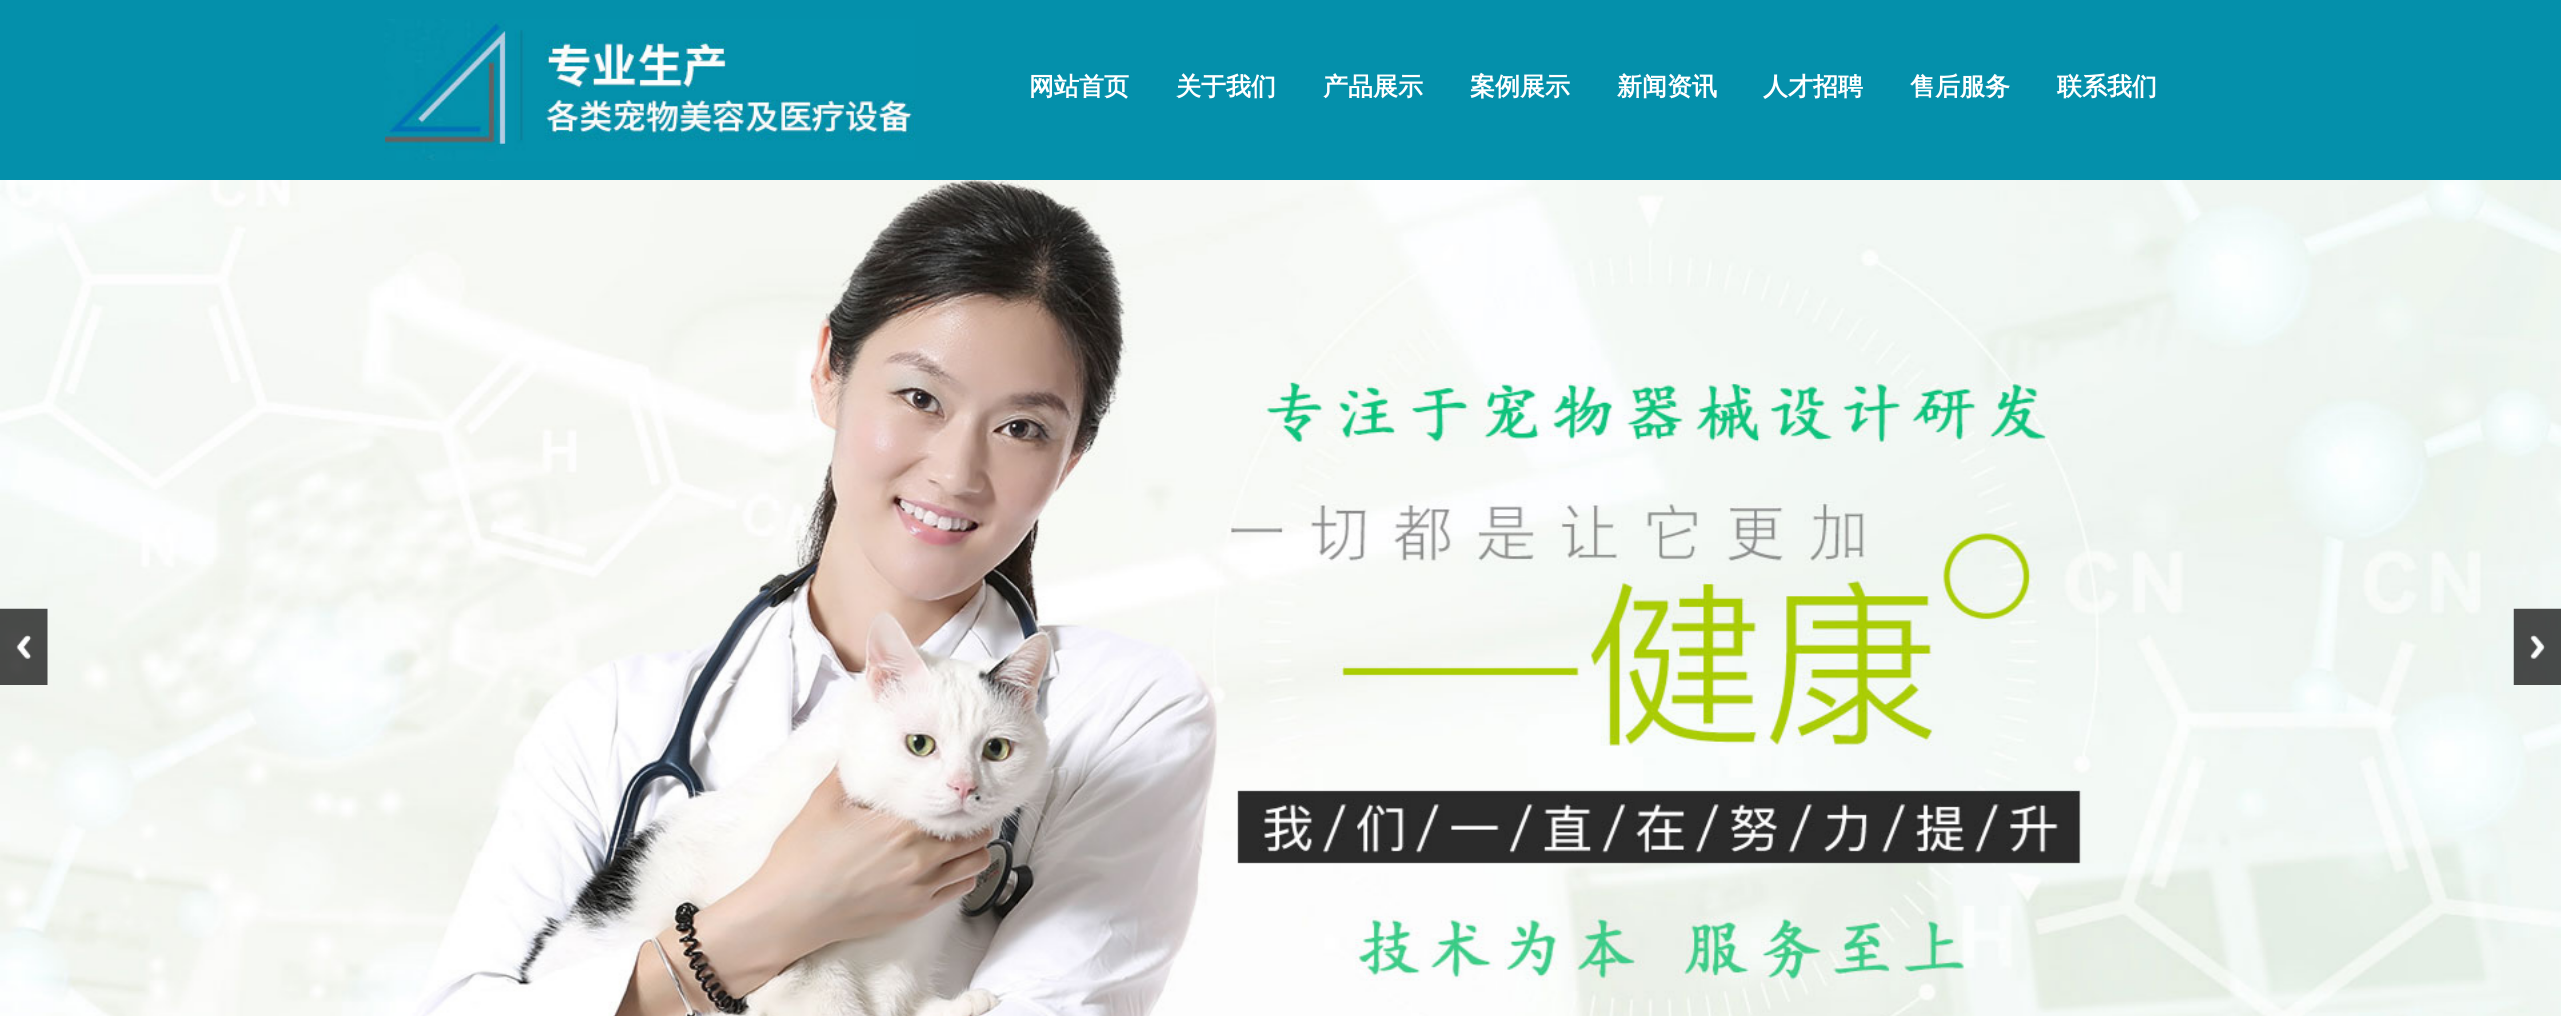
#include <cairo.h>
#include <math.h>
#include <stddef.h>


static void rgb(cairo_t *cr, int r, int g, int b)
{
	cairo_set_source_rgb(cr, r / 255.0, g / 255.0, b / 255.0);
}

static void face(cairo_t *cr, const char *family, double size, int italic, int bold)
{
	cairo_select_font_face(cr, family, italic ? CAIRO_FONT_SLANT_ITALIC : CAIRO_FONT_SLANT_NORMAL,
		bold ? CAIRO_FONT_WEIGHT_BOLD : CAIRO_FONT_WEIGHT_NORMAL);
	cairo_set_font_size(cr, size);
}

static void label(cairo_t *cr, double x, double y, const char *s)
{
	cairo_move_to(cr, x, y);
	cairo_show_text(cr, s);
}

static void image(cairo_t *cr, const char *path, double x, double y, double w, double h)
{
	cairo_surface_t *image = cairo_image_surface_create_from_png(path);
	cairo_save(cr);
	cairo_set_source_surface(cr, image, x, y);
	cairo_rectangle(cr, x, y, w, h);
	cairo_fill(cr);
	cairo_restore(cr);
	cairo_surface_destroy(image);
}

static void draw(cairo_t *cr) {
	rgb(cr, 4, 144, 171);
	cairo_paint(cr);
	image(cr, "image0.png", 384, 19, 531, 142);
	face(cr, "WenQuanYi Zen Hei", 25, 0, 1);
	rgb(cr, 255, 255, 255);
	label(cr, 1029, 95, "网站首页");
	label(cr, 1176, 95, "关于我们");
	label(cr, 1323, 95, "产品展示");
	label(cr, 1470, 95, "案例展示");
	label(cr, 1617, 95, "新闻资讯");
	label(cr, 1763, 95, "人才招聘");
	label(cr, 1910, 95, "售后服务");
	label(cr, 2057, 95, "联系我们");
	image(cr, "image1.png", 0, 180, 2561, 836);
	image(cr, "image2.png", 0, 608, 48, 77);
	image(cr, "image3.png", 2513, 608, 48, 77);
}

int main(void) {
	cairo_surface_t *surface = cairo_image_surface_create(CAIRO_FORMAT_RGB24, 2561, 1016);
	cairo_t *cr = cairo_create(surface);
	cairo_font_options_t *options = cairo_font_options_create();
	cairo_font_options_set_hint_metrics(options, CAIRO_HINT_METRICS_OFF);
	cairo_font_options_set_hint_style(options, CAIRO_HINT_STYLE_NONE);
	cairo_set_font_options(cr, options);
	cairo_set_miter_limit(cr, 4);
	draw(cr);
	cairo_surface_write_to_png(surface, "render.png");
	cairo_font_options_destroy(options);
	cairo_destroy(cr);
	cairo_surface_destroy(surface);
	return 0;
}
